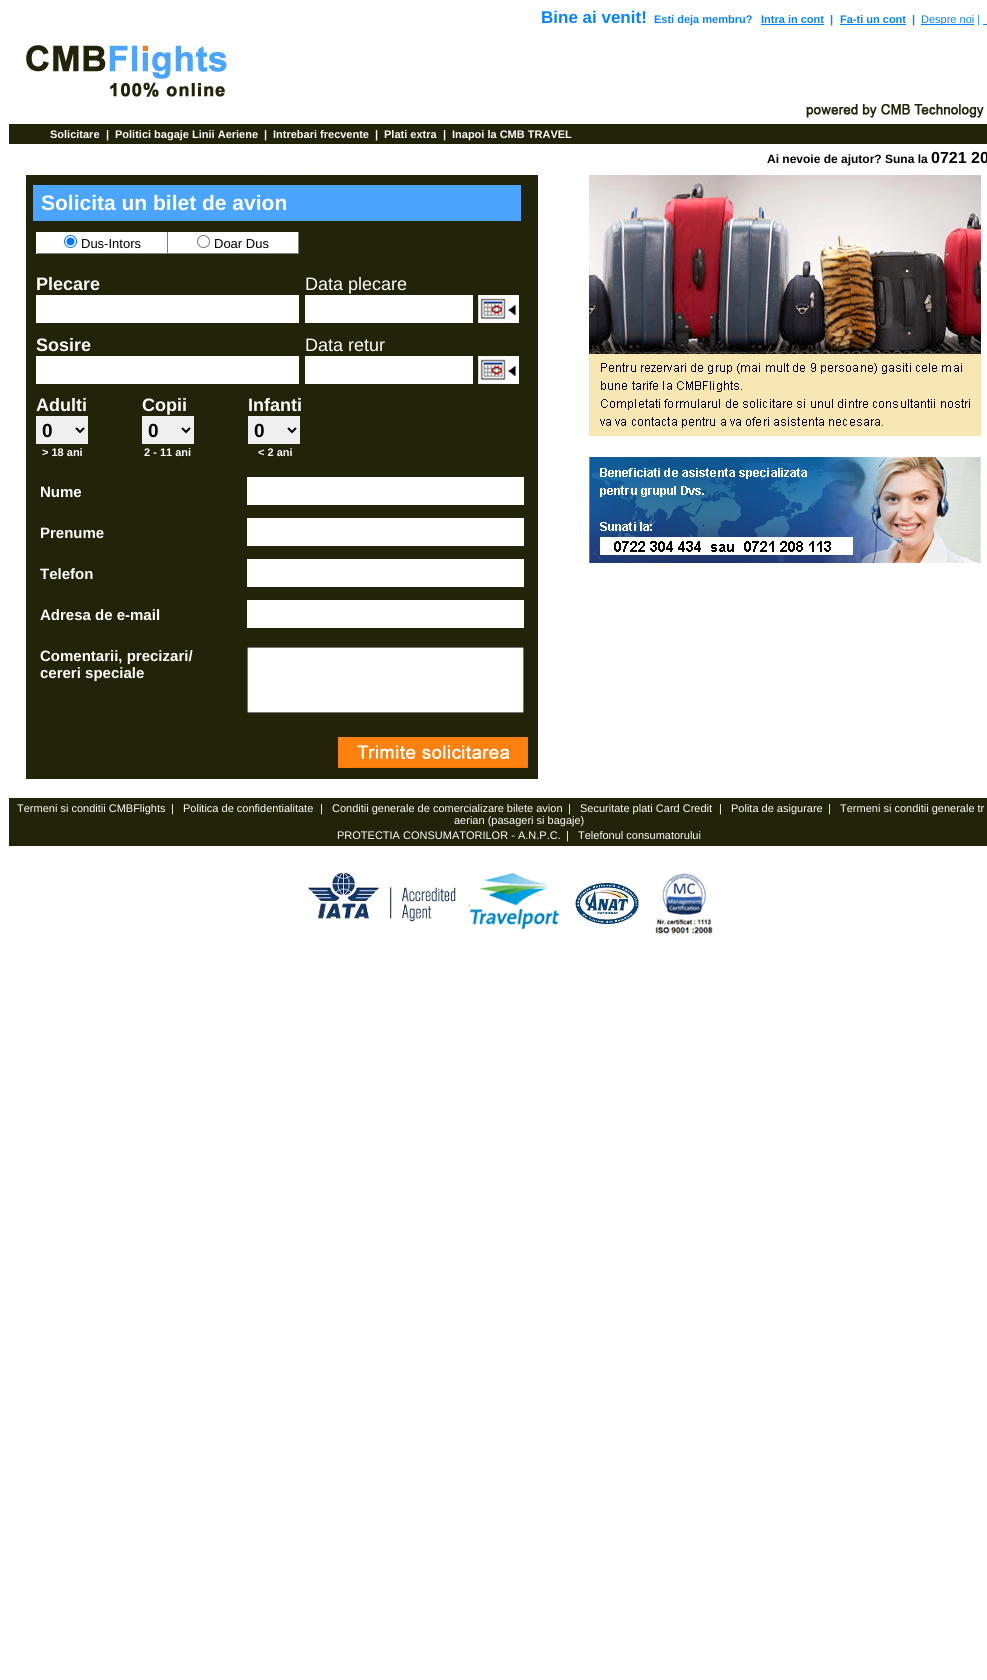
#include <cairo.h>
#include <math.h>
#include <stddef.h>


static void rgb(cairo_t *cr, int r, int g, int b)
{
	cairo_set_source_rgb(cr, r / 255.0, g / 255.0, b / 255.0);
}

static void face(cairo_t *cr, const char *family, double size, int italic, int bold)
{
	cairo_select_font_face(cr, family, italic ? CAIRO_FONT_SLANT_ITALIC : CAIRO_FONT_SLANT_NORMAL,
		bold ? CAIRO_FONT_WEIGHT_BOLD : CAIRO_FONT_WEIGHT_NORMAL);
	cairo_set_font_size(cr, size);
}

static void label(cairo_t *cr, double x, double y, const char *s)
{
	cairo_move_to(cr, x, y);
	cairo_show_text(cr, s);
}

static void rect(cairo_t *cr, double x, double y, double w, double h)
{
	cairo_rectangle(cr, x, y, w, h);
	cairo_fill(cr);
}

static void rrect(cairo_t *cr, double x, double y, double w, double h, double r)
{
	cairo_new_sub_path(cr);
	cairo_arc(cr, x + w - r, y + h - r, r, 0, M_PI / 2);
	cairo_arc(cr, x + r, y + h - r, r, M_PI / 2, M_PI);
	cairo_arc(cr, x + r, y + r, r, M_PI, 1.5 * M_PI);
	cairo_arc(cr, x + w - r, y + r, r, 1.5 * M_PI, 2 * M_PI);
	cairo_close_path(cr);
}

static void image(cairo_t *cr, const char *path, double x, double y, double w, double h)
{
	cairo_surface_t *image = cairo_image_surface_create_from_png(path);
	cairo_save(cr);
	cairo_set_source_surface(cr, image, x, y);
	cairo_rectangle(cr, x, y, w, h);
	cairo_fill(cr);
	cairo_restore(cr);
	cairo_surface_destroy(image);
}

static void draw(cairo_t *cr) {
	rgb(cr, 255, 255, 255);
	cairo_paint(cr);
	face(cr, "Liberation Sans", 17, 0, 1);
	rgb(cr, 7, 130, 254);
	label(cr, 541, 23, "Bine ai venit!");
	face(cr, "Liberation Sans", 11, 0, 1);
	label(cr, 654, 23, "Esti deja membru?");
	label(cr, 761, 23, "Intra in cont");
	rect(cr, 761, 24, 63, 1);
	label(cr, 830, 23, "|");
	label(cr, 840, 23, "Fa-ti un cont");
	rect(cr, 840, 24, 66, 1);
	label(cr, 912, 23, "|");
	rect(cr, 921, 24, 53, 1);
	face(cr, "Liberation Sans", 11, 0, 0);
	label(cr, 921, 23, "Despre noi |");
	rect(cr, 983, 24, 4, 1);
	image(cr, "image0.png", 26, 45, 201, 52);
	image(cr, "image1.png", 806, 104, 178, 14);
	rgb(cr, 33, 36, 8);
	rect(cr, 9, 124, 978, 20);
	face(cr, "Liberation Sans", 11, 0, 1);
	rgb(cr, 255, 255, 255);
	label(cr, 50, 138, "Solicitare");
	label(cr, 106, 138, "|");
	label(cr, 115, 138, "Politici bagaje Linii Aeriene");
	label(cr, 264, 138, "|");
	label(cr, 273, 138, "Intrebari frecvente");
	label(cr, 375, 138, "|");
	label(cr, 384, 138, "Plati extra");
	label(cr, 443, 138, "|");
	label(cr, 452, 138, "Inapoi la CMB TRAVEL");
	face(cr, "Liberation Sans", 12, 0, 1);
	rgb(cr, 0, 0, 0);
	label(cr, 767, 163, "Ai nevoie de ajutor? Suna la");
	face(cr, "Liberation Sans", 16, 0, 1);
	label(cr, 931, 163, "0721 20");
	image(cr, "image2.png", 26, 175, 512, 47);
	face(cr, "Liberation Sans", 21, 0, 1);
	rgb(cr, 255, 255, 255);
	label(cr, 41, 210, "Solicita un bilet de avion");
	rgb(cr, 33, 36, 8);
	rect(cr, 26, 222, 512, 557);
	rgb(cr, 255, 255, 255);
	rect(cr, 37, 233, 130, 20);
	rect(cr, 36, 232, 263, 1);
	rgb(cr, 128, 128, 128);
	rect(cr, 298, 232, 1, 22);
	rect(cr, 167, 253, 132, 1);
	rect(cr, 167, 232, 1, 22);
	rect(cr, 36, 253, 132, 1);
	rgb(cr, 255, 255, 255);
	rect(cr, 36, 232, 1, 22);
	cairo_new_path(cr);
	cairo_arc(cr, 70.5, 241.5, 6, 0, 2 * M_PI);
	rgb(cr, 0, 117, 255);
	cairo_set_line_width(cr, 1);
	cairo_stroke(cr);
	cairo_arc(cr, 70.5, 241.5, 4, 0, 2 * M_PI);
	cairo_fill(cr);
	face(cr, "Liberation Sans", 13, 0, 0);
	rgb(cr, 0, 0, 0);
	label(cr, 81, 248, "Dus-Intors");
	rgb(cr, 255, 255, 255);
	rect(cr, 168, 233, 130, 20);
	cairo_new_path(cr);
	cairo_arc(cr, 203.5, 241.5, 6, 0, 2 * M_PI);
	rgb(cr, 118, 118, 118);
	cairo_stroke(cr);
	rgb(cr, 0, 0, 0);
	label(cr, 214, 248, "Doar Dus");
	face(cr, "Liberation Sans", 18, 0, 1);
	rgb(cr, 255, 255, 255);
	label(cr, 36, 290, "Plecare");
	rect(cr, 36, 295, 263, 28);
	label(cr, 36, 351, "Sosire");
	rect(cr, 36, 356, 263, 28);
	face(cr, "Liberation Sans", 18, 0, 0);
	label(cr, 305, 290, "Data plecare");
	rect(cr, 305, 295, 168, 28);
	image(cr, "image3.png", 478, 295, 41, 28);
	label(cr, 305, 351, "Data retur");
	rect(cr, 305, 356, 168, 28);
	image(cr, "image3.png", 478, 356, 41, 28);
	face(cr, "Liberation Sans", 18, 0, 1);
	label(cr, 36, 411, "Adulti");
	label(cr, 142, 411, "Copii");
	label(cr, 248, 411, "Infanti");
	rgb(cr, 239, 239, 239);
	rect(cr, 36, 416, 52, 28);
	cairo_new_path(cr);
	cairo_move_to(cr, 76, 428);
	cairo_line_to(cr, 80, 432);
	cairo_line_to(cr, 84, 428);
	rgb(cr, 0, 0, 0);
	cairo_set_line_width(cr, 2);
	cairo_stroke(cr);
	face(cr, "Liberation Sans", 19, 0, 1);
	label(cr, 42, 437, "0");
	rgb(cr, 239, 239, 239);
	rect(cr, 142, 416, 52, 28);
	cairo_new_path(cr);
	cairo_move_to(cr, 182, 428);
	cairo_line_to(cr, 186, 432);
	cairo_line_to(cr, 190, 428);
	rgb(cr, 0, 0, 0);
	cairo_stroke(cr);
	label(cr, 148, 437, "0");
	rgb(cr, 239, 239, 239);
	rect(cr, 248, 416, 52, 28);
	cairo_new_path(cr);
	cairo_move_to(cr, 288, 428);
	cairo_line_to(cr, 292, 432);
	cairo_line_to(cr, 296, 428);
	rgb(cr, 0, 0, 0);
	cairo_stroke(cr);
	label(cr, 254, 437, "0");
	face(cr, "Liberation Sans", 11, 0, 1);
	rgb(cr, 255, 255, 255);
	label(cr, 42, 456, "> 18 ani");
	label(cr, 144, 456, "2 - 11 ani");
	label(cr, 258, 456, "< 2 ani");
	face(cr, "Liberation Sans", 15, 0, 1);
	label(cr, 40, 497, "Nume");
	rect(cr, 247, 477, 277, 28);
	label(cr, 40, 538, "Prenume");
	rect(cr, 247, 518, 277, 28);
	label(cr, 40, 579, "Telefon");
	rect(cr, 247, 559, 277, 28);
	label(cr, 40, 620, "Adresa de e-mail");
	rect(cr, 247, 600, 277, 28);
	label(cr, 40, 661, "Comentarii, precizari/");
	label(cr, 40, 678, "cereri speciale");
	rrect(cr, 247.5, 647.5, 276, 65, 1.5);
	cairo_fill_preserve(cr);
	rgb(cr, 118, 118, 118);
	cairo_set_line_width(cr, 1);
	cairo_stroke(cr);
	image(cr, "image4.png", 338, 737, 190, 31);
	image(cr, "image5.png", 589, 175, 392, 388);
	rgb(cr, 33, 36, 8);
	rect(cr, 9, 798, 978, 48);
	face(cr, "Liberation Sans", 11, 0, 0);
	rgb(cr, 255, 255, 255);
	label(cr, 17, 812, "Termeni si conditii CMBFlights");
	label(cr, 171, 812, "|");
	label(cr, 183, 812, "Politica de confidentialitate");
	label(cr, 320, 812, "|");
	label(cr, 332, 812, "Conditii generale de comercializare bilete avion");
	label(cr, 568, 812, "|");
	label(cr, 580, 812, "Securitate plati Card Credit");
	label(cr, 719, 812, "|");
	label(cr, 731, 812, "Polita de asigurare");
	label(cr, 828, 812, "|");
	label(cr, 840, 812, "Termeni si conditii generale tr");
	label(cr, 454, 824, "aerian (pasageri si bagaje)");
	label(cr, 337, 839, "PROTECTIA CONSUMATORILOR - A.N.P.C.");
	label(cr, 566, 839, "|");
	label(cr, 578, 839, "Telefonul consumatorului");
	image(cr, "image6.png", 308, 872, 405, 62);
}

int main(void) {
	cairo_surface_t *surface = cairo_image_surface_create(CAIRO_FORMAT_RGB24, 987, 1680);
	cairo_t *cr = cairo_create(surface);
	cairo_font_options_t *options = cairo_font_options_create();
	cairo_font_options_set_hint_metrics(options, CAIRO_HINT_METRICS_OFF);
	cairo_font_options_set_hint_style(options, CAIRO_HINT_STYLE_NONE);
	cairo_set_font_options(cr, options);
	cairo_set_miter_limit(cr, 4);
	draw(cr);
	cairo_surface_write_to_png(surface, "render.png");
	cairo_font_options_destroy(options);
	cairo_destroy(cr);
	cairo_surface_destroy(surface);
	return 0;
}
